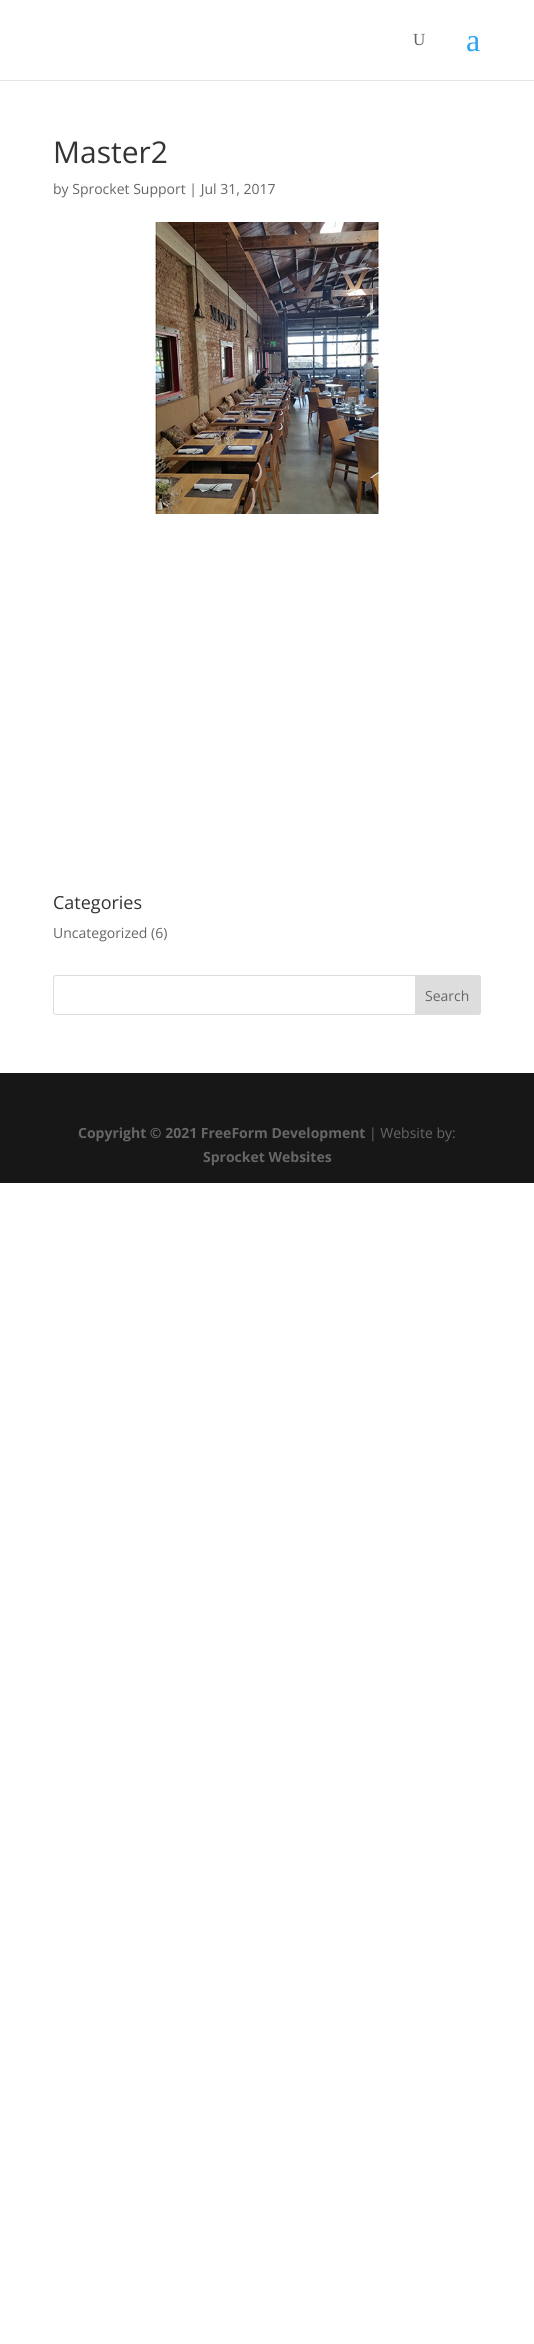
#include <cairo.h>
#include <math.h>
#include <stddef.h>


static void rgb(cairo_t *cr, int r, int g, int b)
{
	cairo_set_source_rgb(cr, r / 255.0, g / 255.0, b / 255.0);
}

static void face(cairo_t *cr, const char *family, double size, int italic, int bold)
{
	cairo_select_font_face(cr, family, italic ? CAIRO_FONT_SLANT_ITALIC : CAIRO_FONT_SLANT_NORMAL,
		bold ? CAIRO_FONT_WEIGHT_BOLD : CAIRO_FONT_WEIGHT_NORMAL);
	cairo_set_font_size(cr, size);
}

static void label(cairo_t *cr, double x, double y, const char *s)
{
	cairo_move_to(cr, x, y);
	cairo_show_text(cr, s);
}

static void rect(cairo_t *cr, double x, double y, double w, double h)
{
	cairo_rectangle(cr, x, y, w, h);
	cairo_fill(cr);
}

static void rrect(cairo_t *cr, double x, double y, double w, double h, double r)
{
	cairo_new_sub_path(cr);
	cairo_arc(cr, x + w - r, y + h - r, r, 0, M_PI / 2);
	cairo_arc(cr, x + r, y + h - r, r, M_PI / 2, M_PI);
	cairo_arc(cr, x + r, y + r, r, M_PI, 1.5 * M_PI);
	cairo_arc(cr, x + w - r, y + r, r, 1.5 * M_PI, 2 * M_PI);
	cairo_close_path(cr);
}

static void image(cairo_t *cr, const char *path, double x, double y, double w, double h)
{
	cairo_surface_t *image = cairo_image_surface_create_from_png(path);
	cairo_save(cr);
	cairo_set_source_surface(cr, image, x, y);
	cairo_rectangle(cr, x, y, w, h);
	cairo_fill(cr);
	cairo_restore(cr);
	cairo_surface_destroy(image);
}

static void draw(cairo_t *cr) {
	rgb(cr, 255, 255, 255);
	cairo_paint(cr);
	rgb(cr, 230, 230, 230);
	rect(cr, 0, 80, 534, 1);
	face(cr, "Liberation Serif", 17, 0, 0);
	rgb(cr, 102, 102, 102);
	label(cr, 413, 45, "U");
	face(cr, "Liberation Serif", 32, 0, 0);
	rgb(cr, 46, 163, 242);
	label(cr, 466, 51, "a");
	face(cr, "Open Sans", 30, 0, 0);
	rgb(cr, 51, 51, 51);
	label(cr, 53, 163, "Master2");
	face(cr, "Open Sans", 14, 0, 0);
	rgb(cr, 102, 102, 102);
	label(cr, 53, 194, "by Sprocket Support | Jul 31, 2017");
	image(cr, "image0.png", 155, 222, 224, 292);
	face(cr, "Open Sans", 18, 0, 0);
	rgb(cr, 51, 51, 51);
	label(cr, 53, 909, "Categories");
	face(cr, "Open Sans", 14, 0, 0);
	rgb(cr, 102, 102, 102);
	label(cr, 53, 938, "Uncategorized (6)");
	rrect(cr, 53.5, 975.5, 427, 39, 2.5);
	rgb(cr, 221, 221, 221);
	cairo_set_line_width(cr, 1);
	cairo_stroke(cr);
	cairo_new_path(cr);
	cairo_move_to(cr, 415.5, 975.5);
	cairo_line_to(cr, 478, 975.5);
	cairo_curve_to(cr, 479.5, 975.5, 480.5, 976.5, 480.5, 978);
	cairo_line_to(cr, 480.5, 1012);
	cairo_curve_to(cr, 480.5, 1013.5, 479.5, 1014.5, 478, 1014.5);
	cairo_line_to(cr, 415.5, 1014.5);
	cairo_close_path(cr);
	cairo_fill_preserve(cr);
	cairo_stroke(cr);
	rgb(cr, 102, 102, 102);
	label(cr, 425, 1001, "Search");
	rgb(cr, 23, 23, 23);
	rect(cr, 0, 1073, 534, 110);
	face(cr, "Open Sans", 14, 0, 1);
	rgb(cr, 102, 102, 102);
	label(cr, 78, 1138, "Copyright © 2021 FreeForm Development");
	face(cr, "Open Sans", 14, 0, 0);
	label(cr, 369, 1138, "| Website by:");
	face(cr, "Open Sans", 14, 0, 1);
	label(cr, 203, 1162, "Sprocket Websites");
}

int main(void) {
	cairo_surface_t *surface = cairo_image_surface_create(CAIRO_FORMAT_RGB24, 534, 2344);
	cairo_t *cr = cairo_create(surface);
	cairo_font_options_t *options = cairo_font_options_create();
	cairo_font_options_set_hint_metrics(options, CAIRO_HINT_METRICS_OFF);
	cairo_font_options_set_hint_style(options, CAIRO_HINT_STYLE_NONE);
	cairo_set_font_options(cr, options);
	cairo_set_miter_limit(cr, 4);
	draw(cr);
	cairo_surface_write_to_png(surface, "render.png");
	cairo_font_options_destroy(options);
	cairo_destroy(cr);
	cairo_surface_destroy(surface);
	return 0;
}
